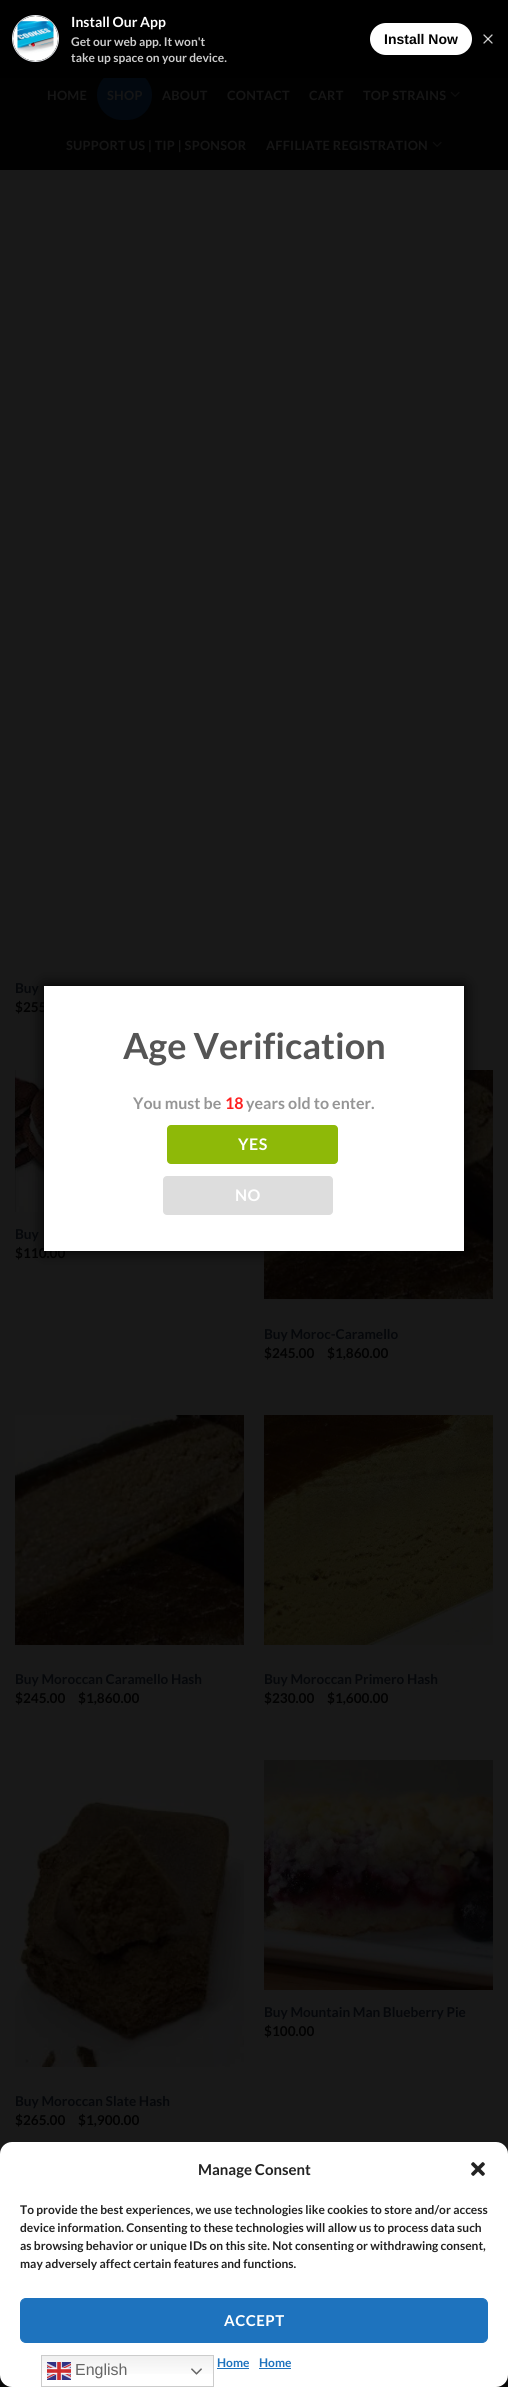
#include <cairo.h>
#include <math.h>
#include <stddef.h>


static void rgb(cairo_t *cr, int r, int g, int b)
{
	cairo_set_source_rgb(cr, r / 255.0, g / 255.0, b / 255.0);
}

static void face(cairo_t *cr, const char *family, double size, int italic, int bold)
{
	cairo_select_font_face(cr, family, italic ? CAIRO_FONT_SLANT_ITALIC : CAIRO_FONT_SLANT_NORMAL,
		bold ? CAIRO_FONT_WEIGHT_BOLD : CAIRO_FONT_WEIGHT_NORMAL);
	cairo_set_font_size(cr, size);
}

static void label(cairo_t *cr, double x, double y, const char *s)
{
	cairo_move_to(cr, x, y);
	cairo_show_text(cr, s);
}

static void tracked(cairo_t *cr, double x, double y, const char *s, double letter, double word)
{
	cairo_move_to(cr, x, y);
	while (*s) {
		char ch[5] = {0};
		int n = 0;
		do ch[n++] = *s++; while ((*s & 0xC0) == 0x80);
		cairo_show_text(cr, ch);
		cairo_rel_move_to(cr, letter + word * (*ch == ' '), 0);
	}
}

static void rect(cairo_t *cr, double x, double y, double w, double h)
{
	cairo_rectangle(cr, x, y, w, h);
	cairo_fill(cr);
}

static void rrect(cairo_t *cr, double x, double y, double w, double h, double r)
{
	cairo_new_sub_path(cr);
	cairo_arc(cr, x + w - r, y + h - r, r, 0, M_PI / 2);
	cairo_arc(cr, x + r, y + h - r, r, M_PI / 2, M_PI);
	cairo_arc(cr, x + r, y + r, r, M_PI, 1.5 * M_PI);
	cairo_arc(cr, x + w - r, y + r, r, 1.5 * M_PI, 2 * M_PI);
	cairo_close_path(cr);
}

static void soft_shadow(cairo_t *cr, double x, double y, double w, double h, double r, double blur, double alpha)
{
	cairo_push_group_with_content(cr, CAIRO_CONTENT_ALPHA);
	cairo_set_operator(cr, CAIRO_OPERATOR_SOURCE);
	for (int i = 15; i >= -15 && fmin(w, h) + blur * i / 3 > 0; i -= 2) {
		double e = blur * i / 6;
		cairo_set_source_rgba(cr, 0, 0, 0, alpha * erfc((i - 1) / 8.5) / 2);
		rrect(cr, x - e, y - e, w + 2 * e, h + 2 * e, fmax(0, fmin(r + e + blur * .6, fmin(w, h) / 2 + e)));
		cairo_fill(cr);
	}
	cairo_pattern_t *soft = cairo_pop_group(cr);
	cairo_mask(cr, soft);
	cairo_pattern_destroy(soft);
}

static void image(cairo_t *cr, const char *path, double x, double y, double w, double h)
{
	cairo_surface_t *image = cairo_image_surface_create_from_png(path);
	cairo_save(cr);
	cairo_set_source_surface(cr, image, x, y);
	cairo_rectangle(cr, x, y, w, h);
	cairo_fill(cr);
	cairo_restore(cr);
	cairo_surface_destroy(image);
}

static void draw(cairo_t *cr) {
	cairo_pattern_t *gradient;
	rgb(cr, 25, 25, 25);
	cairo_paint(cr);
	rgb(cr, 1, 1, 1);
	rect(cr, 0, 78, 508, 92);
	rgb(cr, 2, 8, 15);
	rrect(cr, 97, 70, 55, 50, 25);
	cairo_fill(cr);
	rgb(cr, 0, 0, 0);
	rect(cr, 0, 0, 508, 78);
	cairo_arc(cr, 35.5, 38.5, 23, 0, 2 * M_PI);
	rgb(cr, 229, 231, 235);
	cairo_set_line_width(cr, 1);
	cairo_stroke(cr);
	image(cr, "image0.png", 13, 16, 45, 45);
	face(cr, "Lato", 14, 0, 1);
	rgb(cr, 255, 255, 255);
	label(cr, 71, 27, "Install Our App");
	face(cr, "Lato", 12, 0, 1);
	rgb(cr, 204, 204, 204);
	label(cr, 71, 46, "Get our web app. It won't");
	label(cr, 71, 62, "take up space on your device.");
	rgb(cr, 255, 255, 255);
	rrect(cr, 370, 23, 102, 32, 16);
	cairo_fill(cr);
	face(cr, "Liberation Sans", 14, 0, 1);
	rgb(cr, 2, 2, 2);
	label(cr, 384, 44, "Install Now");
	image(cr, "image1.png", 483, 34, 10, 10);
	face(cr, "Lato", 12.75, 0, 1);
	rgb(cr, 21, 21, 21);
	tracked(cr, 47, 100, "HOME", 0.25, 0);
	tracked(cr, 107, 100, "SHOP", 0.25, 0);
	tracked(cr, 162, 100, "ABOUT", 0.25, 0);
	tracked(cr, 227, 100, "CONTACT", 0.25, 0);
	tracked(cr, 309, 100, "CART", 0.25, 0);
	tracked(cr, 363, 100, "TOP STRAINS", 0.25, 0);
	image(cr, "image2.png", 450, 91, 10, 6);
	tracked(cr, 66, 150, "SUPPORT US | TIP | SPONSOR", 0.25, 0);
	tracked(cr, 266, 150, "AFFILIATE REGISTRATION", 0.25, 0);
	image(cr, "image2.png", 432, 141, 10, 6);
	face(cr, "Lato", 13.6, 0, 1);
	rgb(cr, 5, 7, 10);
	label(cr, 15, 993, "Buy");
	rgb(cr, 2, 2, 2);
	label(cr, 15, 1012, "$255");
	image(cr, "image3.png", 15, 1070, 29, 142);
	rgb(cr, 5, 7, 10);
	label(cr, 15, 1239, "Buy");
	rgb(cr, 2, 2, 2);
	label(cr, 15, 1258, "$110.00");
	image(cr, "image4.png", 264, 1070, 229, 229);
	rgb(cr, 5, 7, 10);
	label(cr, 264, 1339, "Buy Moroc-Caramello");
	rgb(cr, 2, 2, 2);
	label(cr, 264, 1358, "$245.00");
	label(cr, 327, 1358, "$1,860.00");
	image(cr, "image5.png", 15, 1415, 229, 230);
	rgb(cr, 5, 7, 10);
	label(cr, 15, 1684, "Buy Moroccan Caramello Hash");
	rgb(cr, 2, 2, 2);
	label(cr, 15, 1703, "$245.00");
	label(cr, 78, 1703, "$1,860.00");
	image(cr, "image6.png", 264, 1415, 229, 230);
	rgb(cr, 5, 7, 10);
	label(cr, 264, 1684, "Buy Moroccan Primero Hash");
	rgb(cr, 2, 2, 2);
	label(cr, 264, 1703, "$230.00");
	label(cr, 327, 1703, "$1,600.00");
	image(cr, "image7.png", 264, 1760, 229, 230);
	rgb(cr, 5, 7, 10);
	label(cr, 264, 2017, "Buy Mountain Man Blueberry Pie");
	rgb(cr, 2, 2, 2);
	label(cr, 264, 2036, "$100.00");
	image(cr, "image8.png", 15, 1796, 229, 271);
	rgb(cr, 5, 7, 10);
	label(cr, 15, 2106, "Buy Moroccan Slate Hash");
	rgb(cr, 2, 2, 2);
	label(cr, 15, 2125, "$265.00");
	label(cr, 78, 2125, "$1,900.00");
	rgb(cr, 9, 9, 9);
	rect(cr, 0, 2375, 508, 12);
	rgb(cr, 0, 0, 0);
	soft_shadow(cr, 44, 986, 420, 265, 0, 7.5, 1);
	rgb(cr, 255, 255, 255);
	rect(cr, 44, 986, 420, 265);
	face(cr, "Lato", 36, 0, 1);
	rgb(cr, 85, 85, 85);
	label(cr, 123, 1059, "Age Verification");
	face(cr, "Lato", 16, 0, 1);
	rgb(cr, 149, 149, 149);
	label(cr, 133, 1109, "You must be");
	rgb(cr, 255, 31, 31);
	label(cr, 225, 1109, "18");
	rgb(cr, 149, 149, 149);
	label(cr, 246, 1109, "years old to enter.");
	rgb(cr, 142, 185, 8);
	rrect(cr, 167, 1125, 171, 39, 4);
	cairo_fill(cr);
	rgb(cr, 255, 255, 255);
	tracked(cr, 238, 1150, "YES", 0.5, 0);
	rgb(cr, 221, 221, 221);
	rrect(cr, 163, 1176, 170, 39, 4);
	cairo_fill(cr);
	rgb(cr, 255, 255, 255);
	tracked(cr, 235, 1201, "NO", 0.5, 0);
	rrect(cr, 0, 2142, 508, 245, 12);
	cairo_fill(cr);
	face(cr, "Lato", 15, 0, 1);
	rgb(cr, 34, 34, 34);
	label(cr, 198, 2175, "Manage Consent");
	image(cr, "image9.png", 471, 2162, 14, 14);
	face(cr, "Lato", 12, 0, 1);
	label(cr, 20, 2214, "To provide the best experiences, we use technologies like cookies to store and/or access");
	label(cr, 20, 2232, "device information. Consenting to these technologies will allow us to process data such");
	label(cr, 20, 2250, "as browsing behavior or unique IDs on this site. Not consenting or withdrawing consent,");
	label(cr, 20, 2268, "may adversely affect certain features and functions.");
	rgb(cr, 30, 115, 190);
	rrect(cr, 20.5, 2298.5, 467, 44, 5.5);
	cairo_fill_preserve(cr);
	cairo_stroke(cr);
	face(cr, "Lato", 15, 0, 1);
	rgb(cr, 255, 255, 255);
	tracked(cr, 224, 2326, "ACCEPT", 0.5, 0);
	face(cr, "Lato", 12, 0, 1);
	rgb(cr, 30, 115, 190);
	label(cr, 217, 2367, "Home");
	rect(cr, 217, 2368, 32, 1);
	label(cr, 259, 2367, "Home");
	rect(cr, 259, 2368, 32, 1);
	gradient = cairo_pattern_create_linear(128, 2355, 128, 2387);
	cairo_pattern_add_color_stop_rgba(gradient, 0, 0.937, 0.937, 0.937, 1);
	cairo_pattern_add_color_stop_rgba(gradient, 0.7, 1, 1, 1, 1);
	cairo_set_source(cr, gradient);
	cairo_pattern_destroy(gradient);
	rect(cr, 42, 2356, 171, 18);
	cairo_rectangle(cr, 41.5, 2355.5, 172, 31);
	rgb(cr, 204, 204, 204);
	cairo_stroke(cr);
	image(cr, "image10.png", 47, 2362, 24, 18);
	face(cr, "Liberation Sans", 16, 0, 0);
	rgb(cr, 102, 102, 102);
	label(cr, 75, 2375, "English");
	image(cr, "image11.png", 191, 2368, 11, 7);
}

int main(void) {
	cairo_surface_t *surface = cairo_image_surface_create(CAIRO_FORMAT_RGB24, 508, 2387);
	cairo_t *cr = cairo_create(surface);
	cairo_font_options_t *options = cairo_font_options_create();
	cairo_font_options_set_hint_metrics(options, CAIRO_HINT_METRICS_OFF);
	cairo_font_options_set_hint_style(options, CAIRO_HINT_STYLE_NONE);
	cairo_set_font_options(cr, options);
	cairo_set_miter_limit(cr, 4);
	draw(cr);
	cairo_surface_write_to_png(surface, "render.png");
	cairo_font_options_destroy(options);
	cairo_destroy(cr);
	cairo_surface_destroy(surface);
	return 0;
}
